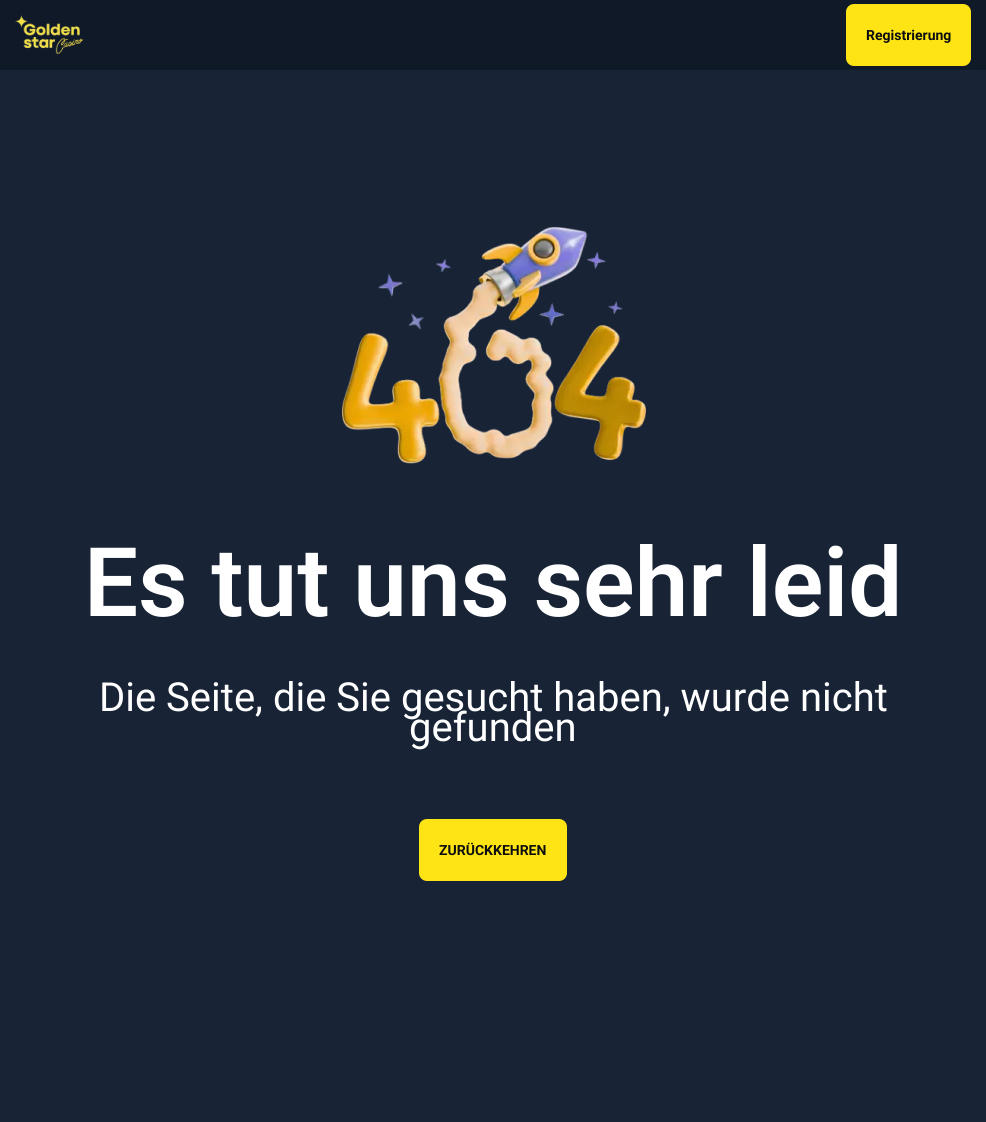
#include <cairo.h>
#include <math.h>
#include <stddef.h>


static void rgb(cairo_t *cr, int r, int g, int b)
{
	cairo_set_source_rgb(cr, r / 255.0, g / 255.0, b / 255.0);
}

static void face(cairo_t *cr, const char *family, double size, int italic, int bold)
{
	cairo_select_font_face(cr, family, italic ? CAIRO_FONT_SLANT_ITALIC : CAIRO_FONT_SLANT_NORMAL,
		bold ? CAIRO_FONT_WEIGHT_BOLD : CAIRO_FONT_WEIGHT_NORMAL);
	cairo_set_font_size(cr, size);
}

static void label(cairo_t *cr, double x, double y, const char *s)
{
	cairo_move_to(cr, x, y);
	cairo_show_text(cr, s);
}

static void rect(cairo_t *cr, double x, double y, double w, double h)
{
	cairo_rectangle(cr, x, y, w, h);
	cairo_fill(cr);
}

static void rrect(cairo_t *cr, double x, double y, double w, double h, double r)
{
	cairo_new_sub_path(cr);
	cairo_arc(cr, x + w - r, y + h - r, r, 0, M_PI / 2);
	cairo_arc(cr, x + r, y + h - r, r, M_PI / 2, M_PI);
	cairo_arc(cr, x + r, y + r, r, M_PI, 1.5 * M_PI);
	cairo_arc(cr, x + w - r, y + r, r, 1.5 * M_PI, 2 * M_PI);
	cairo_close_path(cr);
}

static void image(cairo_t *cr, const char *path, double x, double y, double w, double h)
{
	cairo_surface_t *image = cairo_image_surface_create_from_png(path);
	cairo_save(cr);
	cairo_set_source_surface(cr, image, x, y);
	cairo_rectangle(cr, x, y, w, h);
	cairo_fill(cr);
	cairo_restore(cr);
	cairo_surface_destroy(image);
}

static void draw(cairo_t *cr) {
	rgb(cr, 24, 36, 54);
	cairo_paint(cr);
	rgb(cr, 15, 25, 40);
	rect(cr, 0, 0, 986, 70);
	image(cr, "image0.png", 15, 15, 69, 40);
	rgb(cr, 255, 228, 21);
	rrect(cr, 846, 4, 125, 62, 8);
	cairo_fill(cr);
	face(cr, "Roboto", 14, 0, 1);
	rgb(cr, 11, 13, 14);
	label(cr, 866, 40, "Registrierung");
	image(cr, "image1.png", 342, 226, 304, 238);
	face(cr, "Roboto SemiBold", 96, 0, 0);
	rgb(cr, 255, 255, 255);
	label(cr, 84, 616, "Es tut uns sehr leid");
	face(cr, "Roboto", 40, 0, 0);
	label(cr, 99, 711, "Die Seite, die Sie gesucht haben, wurde nicht");
	label(cr, 409, 741, "gefunden");
	rgb(cr, 255, 228, 21);
	rrect(cr, 419, 819, 148, 62, 8);
	cairo_fill(cr);
	face(cr, "Roboto", 14, 0, 1);
	rgb(cr, 11, 13, 14);
	label(cr, 439, 855, "ZURÜCKKEHREN");
}

int main(void) {
	cairo_surface_t *surface = cairo_image_surface_create(CAIRO_FORMAT_RGB24, 986, 1122);
	cairo_t *cr = cairo_create(surface);
	cairo_font_options_t *options = cairo_font_options_create();
	cairo_font_options_set_hint_metrics(options, CAIRO_HINT_METRICS_OFF);
	cairo_font_options_set_hint_style(options, CAIRO_HINT_STYLE_NONE);
	cairo_set_font_options(cr, options);
	cairo_set_miter_limit(cr, 4);
	draw(cr);
	cairo_surface_write_to_png(surface, "render.png");
	cairo_font_options_destroy(options);
	cairo_destroy(cr);
	cairo_surface_destroy(surface);
	return 0;
}
